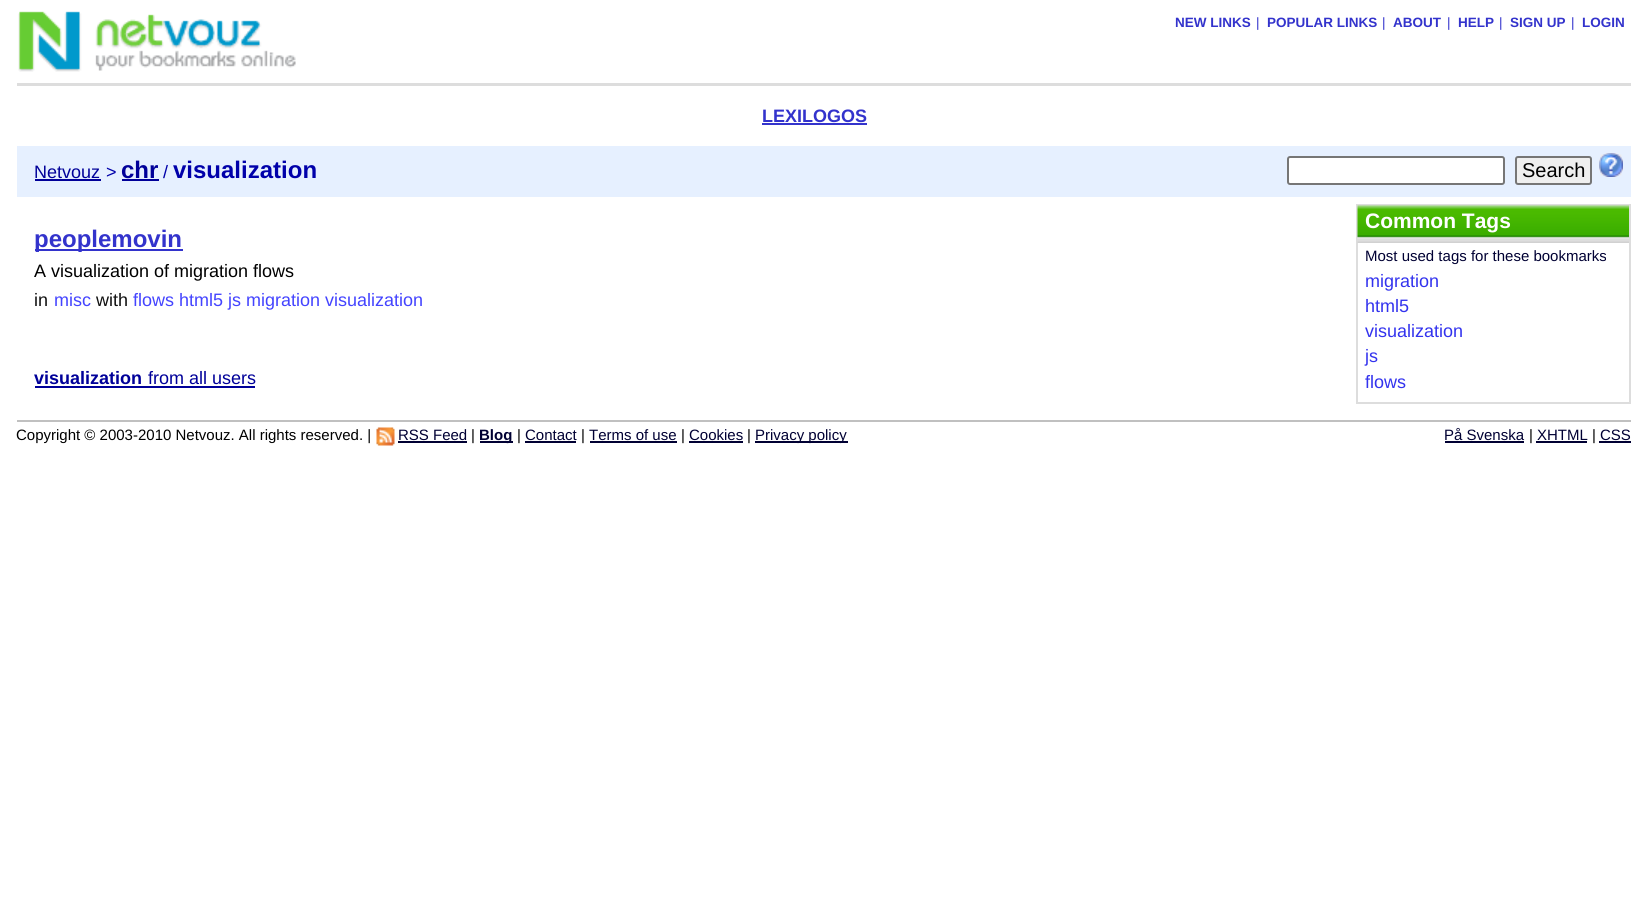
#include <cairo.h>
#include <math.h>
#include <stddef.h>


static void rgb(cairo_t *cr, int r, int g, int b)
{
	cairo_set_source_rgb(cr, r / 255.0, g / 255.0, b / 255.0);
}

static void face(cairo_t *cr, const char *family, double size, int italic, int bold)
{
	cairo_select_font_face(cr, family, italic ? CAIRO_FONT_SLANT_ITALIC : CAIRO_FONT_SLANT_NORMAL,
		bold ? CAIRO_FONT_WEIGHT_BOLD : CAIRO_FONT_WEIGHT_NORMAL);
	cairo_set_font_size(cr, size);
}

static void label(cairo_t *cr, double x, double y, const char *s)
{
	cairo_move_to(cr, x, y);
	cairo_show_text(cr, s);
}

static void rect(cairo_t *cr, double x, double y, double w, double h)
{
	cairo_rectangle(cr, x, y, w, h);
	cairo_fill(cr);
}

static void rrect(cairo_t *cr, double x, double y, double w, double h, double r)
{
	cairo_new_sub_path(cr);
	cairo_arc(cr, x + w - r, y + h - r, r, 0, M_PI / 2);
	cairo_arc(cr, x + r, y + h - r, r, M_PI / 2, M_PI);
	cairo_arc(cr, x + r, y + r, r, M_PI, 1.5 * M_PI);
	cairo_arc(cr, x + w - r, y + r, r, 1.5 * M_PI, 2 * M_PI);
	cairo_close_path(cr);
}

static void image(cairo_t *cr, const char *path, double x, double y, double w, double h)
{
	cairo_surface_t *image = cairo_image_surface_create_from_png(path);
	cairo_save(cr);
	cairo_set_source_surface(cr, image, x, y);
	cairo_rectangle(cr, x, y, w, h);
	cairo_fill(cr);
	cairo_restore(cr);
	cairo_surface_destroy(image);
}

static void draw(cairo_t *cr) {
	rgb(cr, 255, 255, 255);
	cairo_paint(cr);
	rgb(cr, 221, 221, 221);
	rect(cr, 17, 83, 1614, 3);
	image(cr, "image0.png", 18, 11, 278, 61);
	face(cr, "Liberation Sans", 13.5, 0, 1);
	rgb(cr, 51, 51, 204);
	label(cr, 1175, 27, "NEW LINKS");
	face(cr, "Liberation Sans", 13.5, 0, 0);
	label(cr, 1256, 27, "|");
	face(cr, "Liberation Sans", 13.5, 0, 1);
	label(cr, 1267, 27, "POPULAR LINKS");
	face(cr, "Liberation Sans", 13.5, 0, 0);
	label(cr, 1382, 27, "|");
	face(cr, "Liberation Sans", 13.5, 0, 1);
	label(cr, 1393, 27, "ABOUT");
	face(cr, "Liberation Sans", 13.5, 0, 0);
	label(cr, 1447, 27, "|");
	face(cr, "Liberation Sans", 13.5, 0, 1);
	label(cr, 1458, 27, "HELP");
	face(cr, "Liberation Sans", 13.5, 0, 0);
	label(cr, 1499, 27, "|");
	face(cr, "Liberation Sans", 13.5, 0, 1);
	label(cr, 1510, 27, "SIGN UP");
	face(cr, "Liberation Sans", 13.5, 0, 0);
	label(cr, 1571, 27, "|");
	face(cr, "Liberation Sans", 13.5, 0, 1);
	label(cr, 1582, 27, "LOGIN");
	face(cr, "Liberation Sans", 18, 0, 1);
	label(cr, 762, 122, "LEXILOGOS");
	rect(cr, 762, 123, 105, 2);
	rgb(cr, 230, 240, 255);
	rect(cr, 17, 146, 1614, 51);
	face(cr, "Liberation Sans", 18, 0, 0);
	rgb(cr, 0, 0, 153);
	label(cr, 34, 178, "Netvouz");
	rect(cr, 35, 179, 66, 2);
	rgb(cr, 0, 0, 170);
	label(cr, 106, 178, ">");
	face(cr, "Liberation Sans", 24, 0, 1);
	rgb(cr, 0, 0, 153);
	label(cr, 121, 178, "chr");
	rect(cr, 122, 179, 37, 2);
	face(cr, "Liberation Sans", 18, 0, 0);
	rgb(cr, 0, 0, 170);
	label(cr, 163, 178, "/");
	face(cr, "Liberation Sans", 24, 0, 1);
	label(cr, 173, 178, "visualization");
	rgb(cr, 255, 255, 255);
	rrect(cr, 1288, 157, 216, 27, 2);
	cairo_fill_preserve(cr);
	rgb(cr, 118, 118, 118);
	cairo_stroke(cr);
	rgb(cr, 239, 239, 239);
	rrect(cr, 1516, 157, 75, 27, 2);
	cairo_fill_preserve(cr);
	rgb(cr, 118, 118, 118);
	cairo_stroke(cr);
	face(cr, "Liberation Sans", 20, 0, 0);
	rgb(cr, 0, 0, 0);
	label(cr, 1522, 177, "Search");
	image(cr, "image1.png", 1599, 153, 24, 24);
	rgb(cr, 51, 51, 204);
	rect(cr, 35, 249, 148, 2);
	face(cr, "Liberation Sans", 24, 0, 1);
	label(cr, 34, 247, "peoplemovin");
	face(cr, "Liberation Sans", 18, 0, 0);
	rgb(cr, 0, 0, 0);
	label(cr, 34, 277, "A visualization of migration flows");
	rgb(cr, 17, 17, 17);
	label(cr, 34, 306, "in");
	rgb(cr, 68, 68, 255);
	label(cr, 54, 306, "misc");
	rgb(cr, 17, 17, 17);
	label(cr, 96, 306, "with");
	rgb(cr, 68, 68, 255);
	label(cr, 133, 306, "flows html5 js migration visualization");
	face(cr, "Liberation Sans", 18, 0, 1);
	rgb(cr, 0, 0, 153);
	label(cr, 34, 384, "visualization");
	rect(cr, 35, 386, 220, 2);
	face(cr, "Liberation Sans", 18, 0, 0);
	label(cr, 148, 384, "from all users");
	cairo_rectangle(cr, 1357, 205, 273, 198);
	rgb(cr, 221, 221, 221);
	cairo_stroke(cr);
	image(cr, "image2.png", 1357, 205, 272, 38);
	face(cr, "Liberation Sans", 21, 0, 1);
	rgb(cr, 255, 255, 255);
	label(cr, 1365, 228, "Common Tags");
	face(cr, "Liberation Sans", 15, 0, 0);
	rgb(cr, 0, 0, 51);
	label(cr, 1365, 261, "Most used tags for these bookmarks");
	face(cr, "Liberation Sans", 18, 0, 0);
	rgb(cr, 51, 51, 238);
	label(cr, 1365, 287, "migration");
	label(cr, 1365, 312, "html5");
	label(cr, 1365, 337, "visualization");
	label(cr, 1365, 362, "js");
	label(cr, 1365, 388, "flows");
	rgb(cr, 192, 192, 192);
	rect(cr, 17, 420, 1614, 2);
	face(cr, "Liberation Sans", 15, 0, 0);
	rgb(cr, 0, 0, 0);
	label(cr, 16, 440, "Copyright © 2003-2010 Netvouz. All rights reserved. |");
	image(cr, "image3.png", 376, 427, 19, 19);
	rgb(cr, 0, 0, 51);
	label(cr, 398, 440, "RSS Feed");
	rect(cr, 398, 441, 69, 2);
	rgb(cr, 0, 0, 0);
	label(cr, 471, 440, "|");
	rgb(cr, 0, 0, 51);
	rect(cr, 480, 441, 33, 2);
	face(cr, "Liberation Sans", 15, 0, 1);
	label(cr, 479, 440, "Blog");
	face(cr, "Liberation Sans", 15, 0, 0);
	rgb(cr, 0, 0, 0);
	label(cr, 517, 440, "|");
	rgb(cr, 0, 0, 51);
	label(cr, 525, 440, "Contact");
	rect(cr, 525, 441, 51, 2);
	rgb(cr, 0, 0, 0);
	label(cr, 581, 440, "|");
	rgb(cr, 0, 0, 51);
	label(cr, 589, 440, "Terms of use");
	rect(cr, 590, 441, 87, 2);
	rgb(cr, 0, 0, 0);
	label(cr, 681, 440, "|");
	rgb(cr, 0, 0, 51);
	label(cr, 689, 440, "Cookies");
	rect(cr, 689, 441, 54, 2);
	rgb(cr, 0, 0, 0);
	label(cr, 747, 440, "|");
	rgb(cr, 0, 0, 51);
	rect(cr, 755, 441, 93, 2);
	label(cr, 755, 440, "Privacy policy");
	label(cr, 1444, 440, "På Svenska");
	rect(cr, 1445, 441, 79, 2);
	rgb(cr, 0, 0, 0);
	label(cr, 1529, 440, "|");
	rgb(cr, 0, 0, 51);
	label(cr, 1537, 440, "XHTML");
	rect(cr, 1536, 441, 51, 2);
	rgb(cr, 0, 0, 0);
	label(cr, 1592, 440, "|");
	rgb(cr, 0, 0, 51);
	label(cr, 1600, 440, "CSS");
	rect(cr, 1599, 441, 32, 2);
}

int main(void) {
	cairo_surface_t *surface = cairo_image_surface_create(CAIRO_FORMAT_RGB24, 1646, 920);
	cairo_t *cr = cairo_create(surface);
	cairo_font_options_t *options = cairo_font_options_create();
	cairo_font_options_set_hint_metrics(options, CAIRO_HINT_METRICS_OFF);
	cairo_font_options_set_hint_style(options, CAIRO_HINT_STYLE_NONE);
	cairo_set_font_options(cr, options);
	cairo_set_miter_limit(cr, 4);
	draw(cr);
	cairo_surface_write_to_png(surface, "render.png");
	cairo_font_options_destroy(options);
	cairo_destroy(cr);
	cairo_surface_destroy(surface);
	return 0;
}
